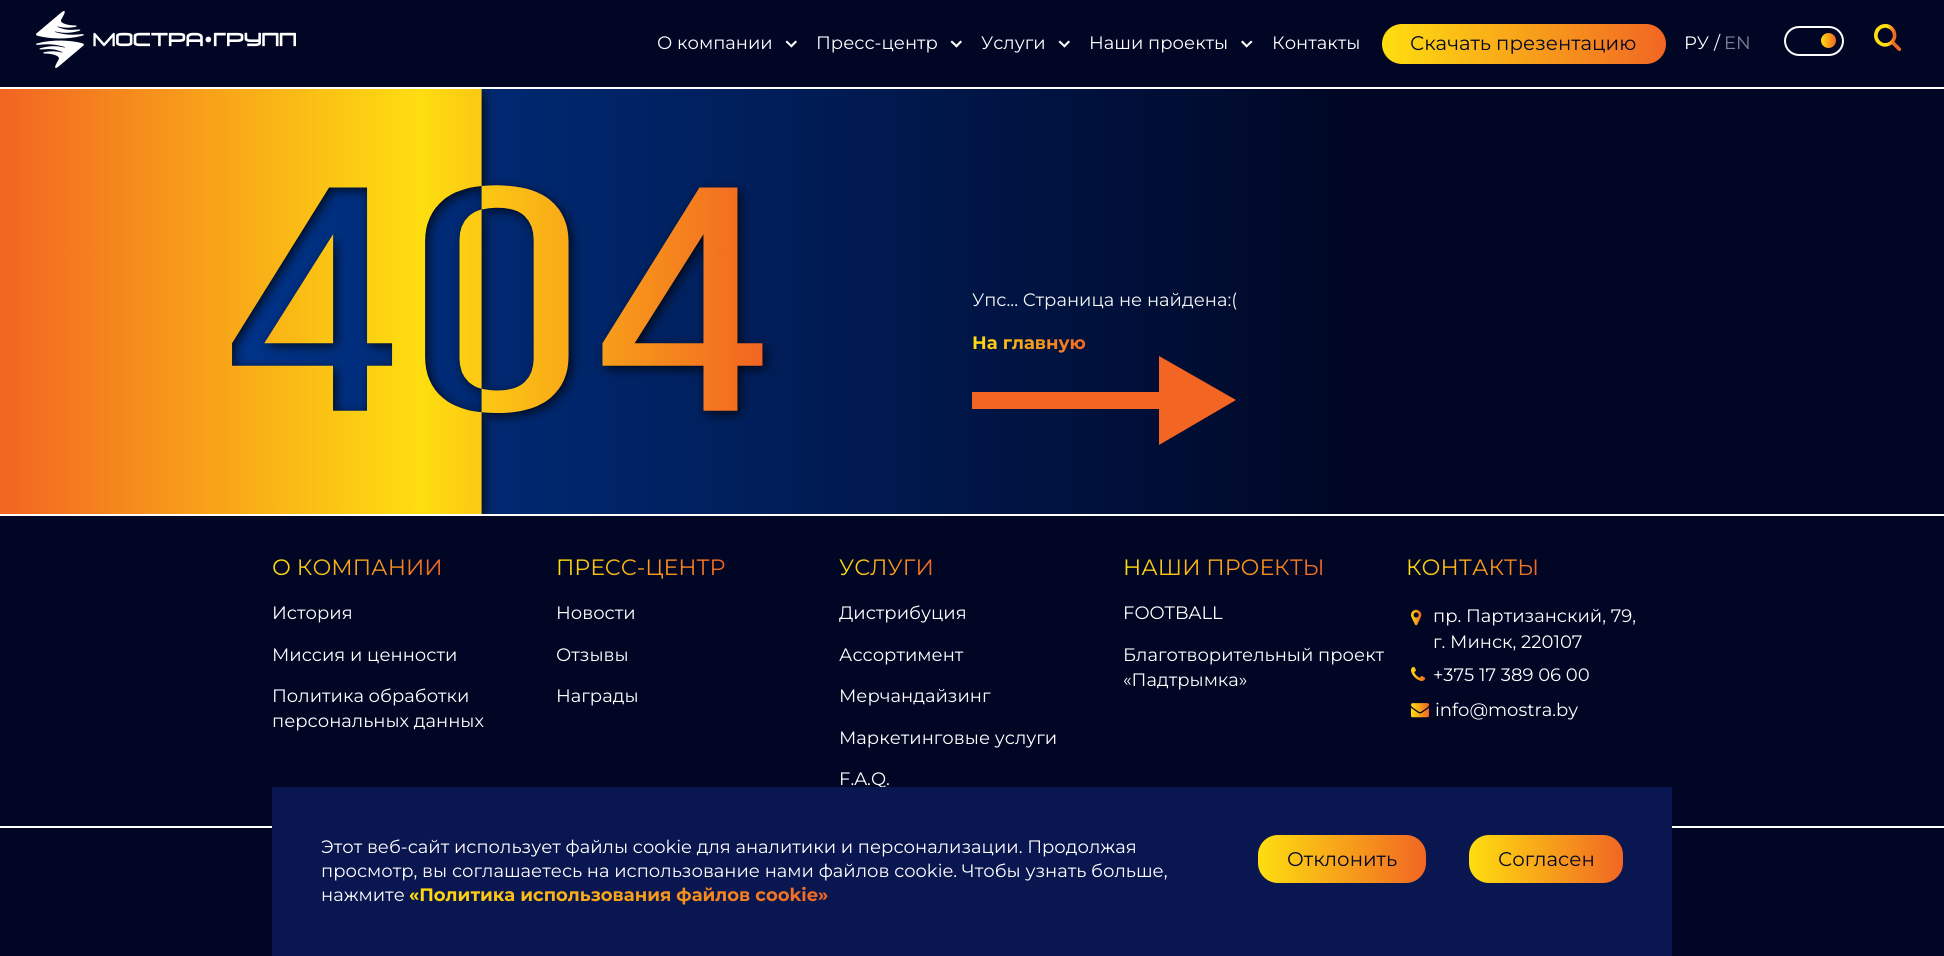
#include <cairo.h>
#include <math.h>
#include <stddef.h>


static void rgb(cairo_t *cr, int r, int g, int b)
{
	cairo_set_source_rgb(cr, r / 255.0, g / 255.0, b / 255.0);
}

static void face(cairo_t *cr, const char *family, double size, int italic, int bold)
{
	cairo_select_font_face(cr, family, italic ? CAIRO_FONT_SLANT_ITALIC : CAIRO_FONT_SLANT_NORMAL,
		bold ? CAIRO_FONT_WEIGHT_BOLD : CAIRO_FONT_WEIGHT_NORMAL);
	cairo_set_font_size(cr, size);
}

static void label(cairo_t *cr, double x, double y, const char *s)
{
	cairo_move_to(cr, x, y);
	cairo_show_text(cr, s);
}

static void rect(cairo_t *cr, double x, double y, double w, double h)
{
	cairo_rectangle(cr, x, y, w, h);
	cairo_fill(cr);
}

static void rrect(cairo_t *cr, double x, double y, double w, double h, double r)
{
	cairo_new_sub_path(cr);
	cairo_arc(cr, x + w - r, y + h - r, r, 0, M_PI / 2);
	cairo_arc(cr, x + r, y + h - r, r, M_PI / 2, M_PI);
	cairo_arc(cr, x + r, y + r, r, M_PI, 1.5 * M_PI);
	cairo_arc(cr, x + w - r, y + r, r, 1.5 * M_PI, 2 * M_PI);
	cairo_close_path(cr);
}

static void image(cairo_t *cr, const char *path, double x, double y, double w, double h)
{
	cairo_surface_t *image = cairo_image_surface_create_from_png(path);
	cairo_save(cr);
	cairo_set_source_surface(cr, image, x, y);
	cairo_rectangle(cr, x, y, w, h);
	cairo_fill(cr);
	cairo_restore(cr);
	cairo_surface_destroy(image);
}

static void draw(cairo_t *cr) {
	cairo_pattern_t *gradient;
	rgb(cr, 1, 6, 36);
	cairo_paint(cr);
	image(cr, "image0.png", 36, 11, 260, 57);
	face(cr, "Montserrat", 18, 0, 0);
	rgb(cr, 255, 255, 255);
	label(cr, 657, 49, "О компании");
	cairo_new_path(cr);
	cairo_move_to(cr, 795.5, 40.5);
	cairo_line_to(cr, 797, 42);
	cairo_line_to(cr, 791.5, 47.5);
	cairo_line_to(cr, 790, 46);
	cairo_close_path(cr);
	cairo_fill(cr);
	cairo_new_path(cr);
	cairo_move_to(cr, 787, 40.5);
	cairo_line_to(cr, 792.5, 46);
	cairo_line_to(cr, 791.5, 47.5);
	cairo_line_to(cr, 785.5, 42);
	cairo_close_path(cr);
	cairo_fill(cr);
	label(cr, 816, 49, "Пресс-центр");
	cairo_new_path(cr);
	cairo_move_to(cr, 960.5, 40.5);
	cairo_line_to(cr, 962, 42);
	cairo_line_to(cr, 956.5, 47.5);
	cairo_line_to(cr, 955, 46);
	cairo_close_path(cr);
	cairo_fill(cr);
	cairo_new_path(cr);
	cairo_move_to(cr, 952, 40.5);
	cairo_line_to(cr, 958, 46);
	cairo_line_to(cr, 956.5, 47.5);
	cairo_line_to(cr, 950.5, 42);
	cairo_close_path(cr);
	cairo_fill(cr);
	label(cr, 981, 49, "Услуги");
	cairo_new_path(cr);
	cairo_move_to(cr, 1068.5, 40.5);
	cairo_line_to(cr, 1070, 42);
	cairo_line_to(cr, 1064.5, 47.5);
	cairo_line_to(cr, 1063, 46);
	cairo_close_path(cr);
	cairo_fill(cr);
	cairo_new_path(cr);
	cairo_move_to(cr, 1060, 40.5);
	cairo_line_to(cr, 1065.5, 46);
	cairo_line_to(cr, 1064.5, 47.5);
	cairo_line_to(cr, 1058.5, 42);
	cairo_close_path(cr);
	cairo_fill(cr);
	label(cr, 1089, 49, "Наши проекты");
	cairo_new_path(cr);
	cairo_move_to(cr, 1251, 40.5);
	cairo_line_to(cr, 1252.5, 42);
	cairo_line_to(cr, 1246.5, 47.5);
	cairo_line_to(cr, 1245.5, 46);
	cairo_close_path(cr);
	cairo_fill(cr);
	cairo_new_path(cr);
	cairo_move_to(cr, 1242.5, 40.5);
	cairo_line_to(cr, 1248, 46);
	cairo_line_to(cr, 1246.5, 47.5);
	cairo_line_to(cr, 1241, 42);
	cairo_close_path(cr);
	cairo_fill(cr);
	label(cr, 1272, 49, "Контакты");
	gradient = cairo_pattern_create_linear(1382, 44, 1666, 44);
	cairo_pattern_add_color_stop_rgba(gradient, 0, 0.996, 0.871, 0.063, 1);
	cairo_pattern_add_color_stop_rgba(gradient, 1, 0.945, 0.4, 0.137, 1);
	cairo_set_source(cr, gradient);
	cairo_pattern_destroy(gradient);
	rrect(cr, 1382, 24, 284, 40, 20);
	cairo_fill(cr);
	face(cr, "Montserrat", 19.75, 0, 0);
	rgb(cr, 1, 6, 36);
	label(cr, 1410, 50, "Скачать презентацию");
	face(cr, "Montserrat", 18, 0, 0);
	rgb(cr, 255, 255, 255);
	label(cr, 1684, 49, "РУ");
	rgb(cr, 245, 245, 245);
	label(cr, 1714, 49, "/");
	rgb(cr, 128, 131, 146);
	label(cr, 1724, 49, "EN");
	rrect(cr, 1785, 27, 58, 28, 14);
	rgb(cr, 255, 255, 255);
	cairo_stroke(cr);
	gradient = cairo_pattern_create_linear(1821, 41, 1836, 41);
	cairo_pattern_add_color_stop_rgba(gradient, 0, 0.996, 0.871, 0.063, 1);
	cairo_pattern_add_color_stop_rgba(gradient, 1, 0.945, 0.4, 0.137, 1);
	cairo_set_source(cr, gradient);
	cairo_pattern_destroy(gradient);
	cairo_arc(cr, 1828.5, 40.5, 7.5, 0, 2 * M_PI);
	cairo_fill(cr);
	image(cr, "image1.png", 1874, 24, 28, 28);
	gradient = cairo_pattern_create_linear(0, 303, 1944, 302);
	cairo_pattern_add_color_stop_rgba(gradient, 0, 0, 0.235, 0.616, 1);
	cairo_pattern_add_color_stop_rgba(gradient, 0.7, 0, 0.024, 0.141, 1);
	cairo_set_source(cr, gradient);
	cairo_pattern_destroy(gradient);
	rect(cr, 232, 89, 1101, 425);
	rgb(cr, 255, 255, 255);
	rect(cr, 0, 87, 1944, 2);
	image(cr, "image2.png", 0, 89, 773, 425);
	rgb(cr, 245, 245, 245);
	label(cr, 972, 306, "Упс... Страница не найдена:(");
	face(cr, "Montserrat", 18, 0, 1);
	gradient = cairo_pattern_create_linear(972, 343, 1086, 343);
	cairo_pattern_add_color_stop_rgba(gradient, 0, 0.996, 0.871, 0.063, 1);
	cairo_pattern_add_color_stop_rgba(gradient, 1, 0.945, 0.4, 0.137, 1);
	cairo_set_source(cr, gradient);
	cairo_pattern_destroy(gradient);
	label(cr, 972, 349, "На главную");
	rgb(cr, 242, 101, 34);
	cairo_new_path(cr);
	cairo_move_to(cr, 972, 409);
	cairo_line_to(cr, 972, 392);
	cairo_line_to(cr, 1159, 392);
	cairo_line_to(cr, 1159, 356);
	cairo_line_to(cr, 1236, 400);
	cairo_line_to(cr, 1159, 445);
	cairo_line_to(cr, 1159, 409);
	cairo_close_path(cr);
	cairo_fill(cr);
	rgb(cr, 255, 255, 255);
	rect(cr, 0, 514, 1944, 2);
	face(cr, "Montserrat", 22.25, 0, 0);
	gradient = cairo_pattern_create_linear(272, 567, 443, 567);
	cairo_pattern_add_color_stop_rgba(gradient, 0, 0.996, 0.871, 0.063, 1);
	cairo_pattern_add_color_stop_rgba(gradient, 1, 0.945, 0.4, 0.137, 1);
	cairo_set_source(cr, gradient);
	cairo_pattern_destroy(gradient);
	label(cr, 272, 575, "О КОМПАНИИ");
	face(cr, "Montserrat", 18, 0, 0);
	rgb(cr, 255, 255, 255);
	label(cr, 272, 619, "История");
	label(cr, 272, 661, "Миссия и ценности");
	label(cr, 272, 702, "Политика обработки");
	label(cr, 272, 727, "персональных данных");
	face(cr, "Montserrat", 22.25, 0, 0);
	gradient = cairo_pattern_create_linear(556, 567, 725, 567);
	cairo_pattern_add_color_stop_rgba(gradient, 0, 0.996, 0.871, 0.063, 1);
	cairo_pattern_add_color_stop_rgba(gradient, 1, 0.945, 0.4, 0.137, 1);
	cairo_set_source(cr, gradient);
	cairo_pattern_destroy(gradient);
	label(cr, 556, 575, "ПРЕСС-ЦЕНТР");
	face(cr, "Montserrat", 18, 0, 0);
	rgb(cr, 255, 255, 255);
	label(cr, 556, 619, "Новости");
	label(cr, 556, 661, "Отзывы");
	label(cr, 556, 702, "Награды");
	face(cr, "Montserrat", 22.25, 0, 0);
	gradient = cairo_pattern_create_linear(839, 567, 934, 567);
	cairo_pattern_add_color_stop_rgba(gradient, 0, 0.996, 0.871, 0.063, 1);
	cairo_pattern_add_color_stop_rgba(gradient, 1, 0.945, 0.4, 0.137, 1);
	cairo_set_source(cr, gradient);
	cairo_pattern_destroy(gradient);
	label(cr, 839, 575, "УСЛУГИ");
	face(cr, "Montserrat", 18, 0, 0);
	rgb(cr, 255, 255, 255);
	label(cr, 839, 619, "Дистрибуция");
	label(cr, 839, 661, "Ассортимент");
	label(cr, 839, 702, "Мерчандайзинг");
	label(cr, 839, 744, "Маркетинговые услуги");
	label(cr, 839, 785, "F.A.Q.");
	face(cr, "Montserrat", 22.25, 0, 0);
	gradient = cairo_pattern_create_linear(1123, 567, 1325, 567);
	cairo_pattern_add_color_stop_rgba(gradient, 0, 0.996, 0.871, 0.063, 1);
	cairo_pattern_add_color_stop_rgba(gradient, 1, 0.945, 0.4, 0.137, 1);
	cairo_set_source(cr, gradient);
	cairo_pattern_destroy(gradient);
	label(cr, 1123, 575, "НАШИ ПРОЕКТЫ");
	face(cr, "Montserrat", 18, 0, 0);
	rgb(cr, 255, 255, 255);
	label(cr, 1123, 619, "FOOTBALL");
	label(cr, 1123, 661, "Благотворительный проект");
	label(cr, 1123, 686, "«Падтрымка»");
	face(cr, "Montserrat", 22.25, 0, 0);
	gradient = cairo_pattern_create_linear(1406, 567, 1539, 567);
	cairo_pattern_add_color_stop_rgba(gradient, 0, 0.996, 0.871, 0.063, 1);
	cairo_pattern_add_color_stop_rgba(gradient, 1, 0.945, 0.4, 0.137, 1);
	cairo_set_source(cr, gradient);
	cairo_pattern_destroy(gradient);
	label(cr, 1406, 575, "КОНТАКТЫ");
	image(cr, "image3.png", 1411, 609, 11, 17);
	face(cr, "Montserrat", 18, 0, 0);
	rgb(cr, 255, 255, 255);
	label(cr, 1433, 622, "пр. Партизанский, 79,");
	label(cr, 1433, 648, "г. Минск, 220107");
	image(cr, "image4.png", 1411, 666, 15, 15);
	label(cr, 1433, 681, "+375 17 389 06 00");
	image(cr, "image5.png", 1411, 703, 18, 15);
	label(cr, 1435, 716, "info@mostra.by");
	rect(cr, 0, 826, 1944, 2);
	rgb(cr, 10, 22, 80);
	rect(cr, 272, 787, 1400, 169);
	rgb(cr, 255, 255, 255);
	label(cr, 321, 853, "Этот веб-сайт использует файлы cookie для аналитики и персонализации. Продолжая");
	label(cr, 321, 877, "просмотр, вы соглашаетесь на использование нами файлов cookie. Чтобы узнать больше,");
	label(cr, 321, 901, "нажмите");
	face(cr, "Montserrat", 18, 0, 1);
	gradient = cairo_pattern_create_linear(409, 895, 828, 895);
	cairo_pattern_add_color_stop_rgba(gradient, 0, 0.996, 0.871, 0.063, 1);
	cairo_pattern_add_color_stop_rgba(gradient, 1, 0.945, 0.4, 0.137, 1);
	cairo_set_source(cr, gradient);
	cairo_pattern_destroy(gradient);
	label(cr, 409, 901, "«Политика использования файлов cookie»");
	gradient = cairo_pattern_create_linear(1258, 859, 1426, 859);
	cairo_pattern_add_color_stop_rgba(gradient, 0, 0.996, 0.871, 0.063, 1);
	cairo_pattern_add_color_stop_rgba(gradient, 1, 0.945, 0.4, 0.137, 1);
	cairo_set_source(cr, gradient);
	cairo_pattern_destroy(gradient);
	rrect(cr, 1258, 835, 168, 48, 20);
	cairo_fill(cr);
	face(cr, "Montserrat", 19.75, 0, 0);
	rgb(cr, 1, 6, 36);
	label(cr, 1287, 866, "Отклонить");
	gradient = cairo_pattern_create_linear(1469, 859, 1623, 859);
	cairo_pattern_add_color_stop_rgba(gradient, 0, 0.996, 0.871, 0.063, 1);
	cairo_pattern_add_color_stop_rgba(gradient, 1, 0.945, 0.4, 0.137, 1);
	cairo_set_source(cr, gradient);
	cairo_pattern_destroy(gradient);
	rrect(cr, 1469, 835, 154, 48, 20);
	cairo_fill(cr);
	rgb(cr, 1, 6, 36);
	label(cr, 1498, 866, "Согласен");
}

int main(void) {
	cairo_surface_t *surface = cairo_image_surface_create(CAIRO_FORMAT_RGB24, 1944, 956);
	cairo_t *cr = cairo_create(surface);
	cairo_font_options_t *options = cairo_font_options_create();
	cairo_font_options_set_hint_metrics(options, CAIRO_HINT_METRICS_OFF);
	cairo_font_options_set_hint_style(options, CAIRO_HINT_STYLE_NONE);
	cairo_set_font_options(cr, options);
	cairo_set_miter_limit(cr, 4);
	draw(cr);
	cairo_surface_write_to_png(surface, "render.png");
	cairo_font_options_destroy(options);
	cairo_destroy(cr);
	cairo_surface_destroy(surface);
	return 0;
}
